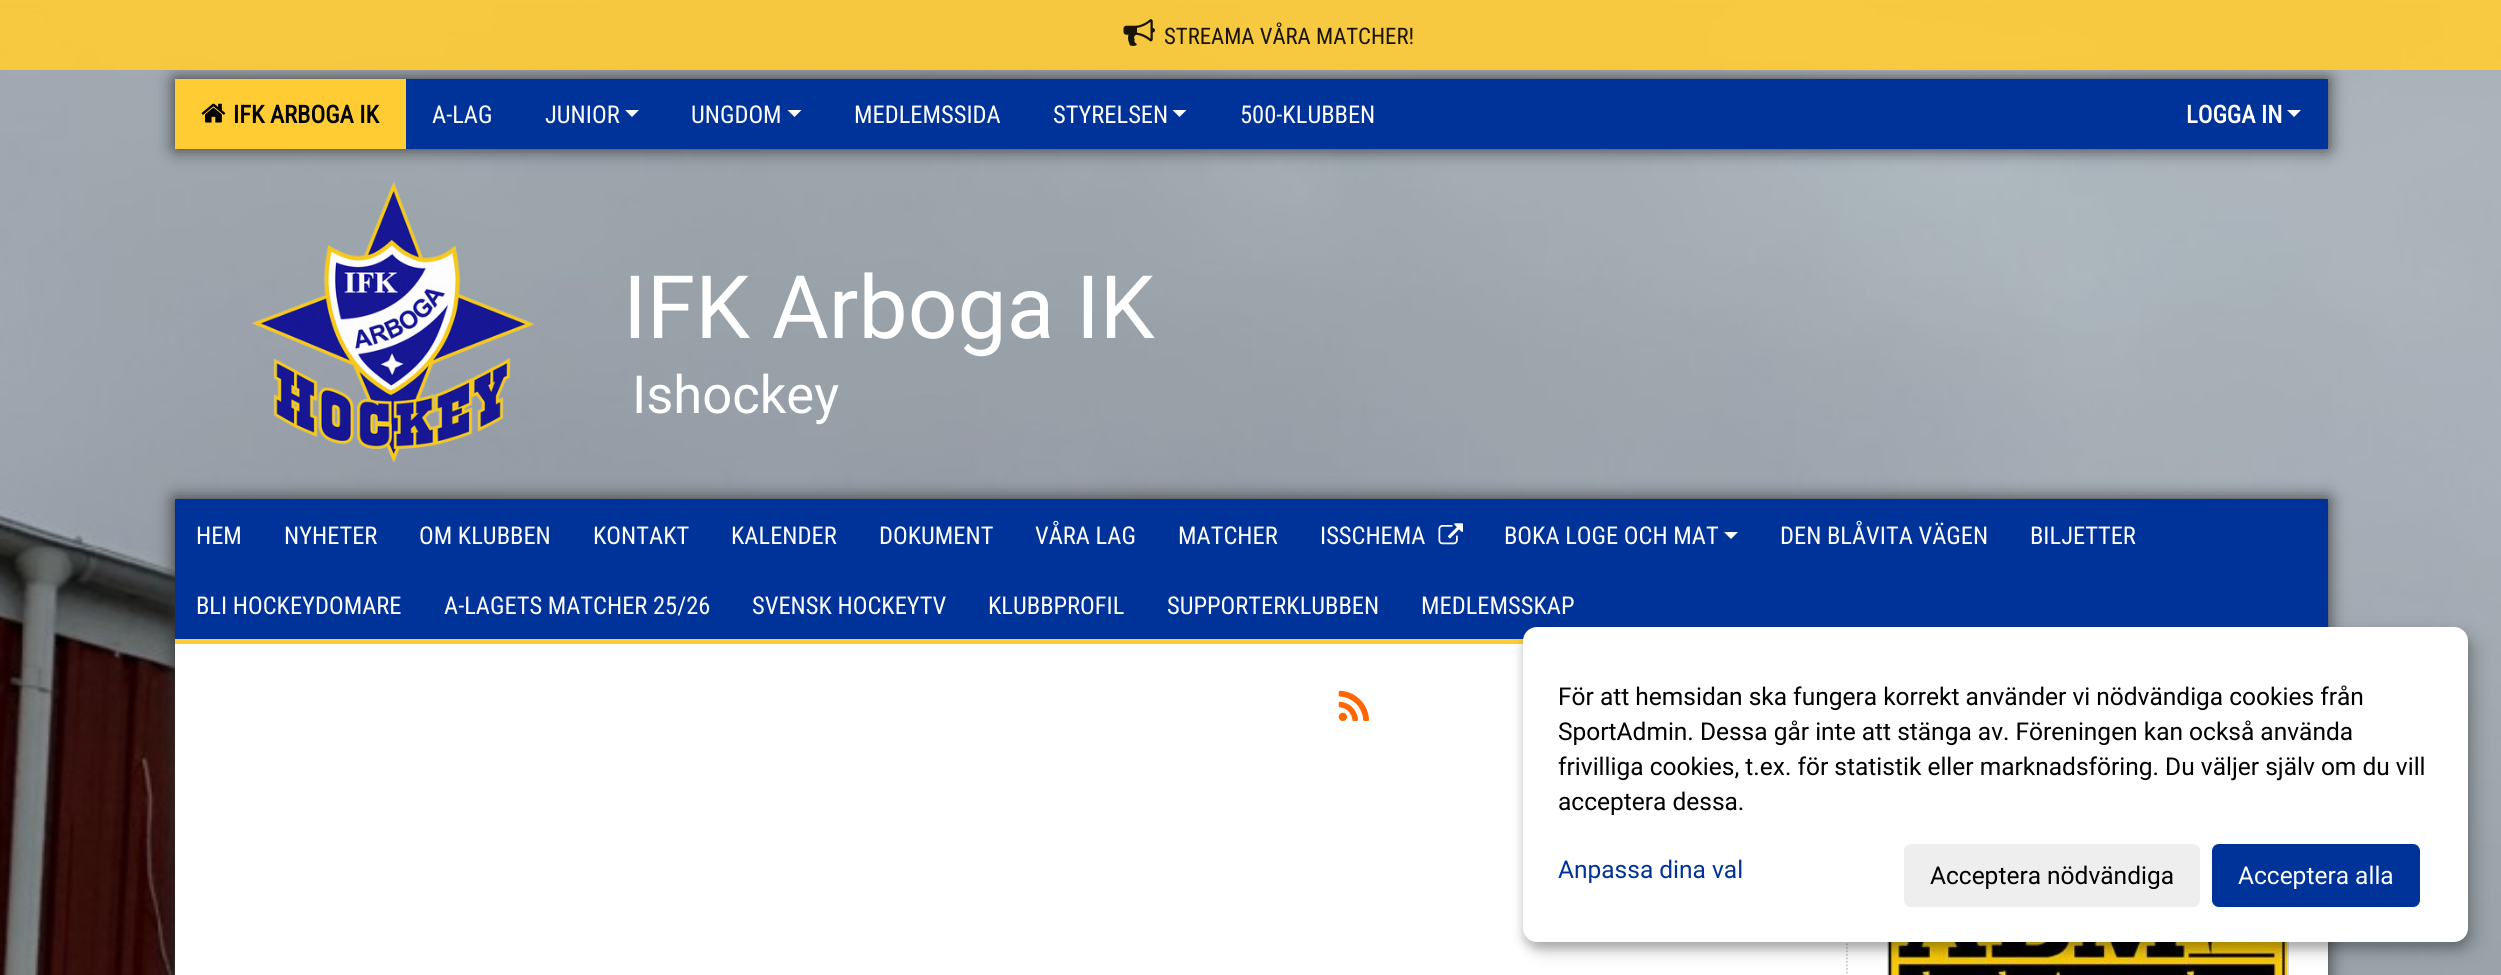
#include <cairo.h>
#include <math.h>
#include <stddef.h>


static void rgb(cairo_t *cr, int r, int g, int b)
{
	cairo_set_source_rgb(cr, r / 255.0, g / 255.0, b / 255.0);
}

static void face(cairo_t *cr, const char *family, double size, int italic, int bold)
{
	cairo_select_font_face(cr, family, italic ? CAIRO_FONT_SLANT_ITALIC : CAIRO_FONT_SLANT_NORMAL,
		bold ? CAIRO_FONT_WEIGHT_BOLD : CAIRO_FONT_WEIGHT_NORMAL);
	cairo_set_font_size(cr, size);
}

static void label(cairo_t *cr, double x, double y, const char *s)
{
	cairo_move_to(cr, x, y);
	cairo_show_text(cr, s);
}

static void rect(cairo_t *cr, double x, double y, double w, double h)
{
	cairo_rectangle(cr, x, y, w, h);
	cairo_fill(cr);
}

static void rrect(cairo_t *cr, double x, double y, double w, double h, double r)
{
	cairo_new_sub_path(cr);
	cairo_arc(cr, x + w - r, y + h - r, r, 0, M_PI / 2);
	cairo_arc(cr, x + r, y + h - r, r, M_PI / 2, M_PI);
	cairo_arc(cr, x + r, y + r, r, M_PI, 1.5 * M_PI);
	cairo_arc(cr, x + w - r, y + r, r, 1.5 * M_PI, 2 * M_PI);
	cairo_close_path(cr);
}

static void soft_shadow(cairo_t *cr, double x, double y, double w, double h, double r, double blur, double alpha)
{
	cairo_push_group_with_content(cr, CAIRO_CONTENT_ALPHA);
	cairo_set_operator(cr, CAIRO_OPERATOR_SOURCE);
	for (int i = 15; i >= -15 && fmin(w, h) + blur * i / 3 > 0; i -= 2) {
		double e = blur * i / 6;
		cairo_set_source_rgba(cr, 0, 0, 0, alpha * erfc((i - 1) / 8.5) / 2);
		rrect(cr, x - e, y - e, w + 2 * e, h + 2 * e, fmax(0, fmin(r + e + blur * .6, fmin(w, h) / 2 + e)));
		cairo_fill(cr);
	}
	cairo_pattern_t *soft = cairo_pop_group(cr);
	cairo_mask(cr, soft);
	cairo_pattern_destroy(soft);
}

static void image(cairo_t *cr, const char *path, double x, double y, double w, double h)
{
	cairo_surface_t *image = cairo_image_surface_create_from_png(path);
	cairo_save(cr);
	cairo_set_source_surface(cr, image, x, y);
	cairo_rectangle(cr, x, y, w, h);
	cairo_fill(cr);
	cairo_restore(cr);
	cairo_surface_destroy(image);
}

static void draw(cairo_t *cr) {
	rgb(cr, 255, 255, 255);
	cairo_paint(cr);
	image(cr, "image0.png", 0, 0, 2501, 975);
	rgb(cr, 51, 51, 51);
	soft_shadow(cr, 175, 79, 2153, 70, 0, 9, 1);
	cairo_set_source_rgba(cr, 1, 0.8, 0.2, 0.9);
	rect(cr, 0, 0, 2501, 70);
	image(cr, "image1.png", 1123, 19, 32, 27);
	face(cr, "Roboto Condensed", 22.75, 0, 0);
	rgb(cr, 25, 20, 6);
	label(cr, 1164, 44, "STREAMA VÅRA MATCHER!");
	rgb(cr, 0, 51, 153);
	rect(cr, 406, 79, 1922, 70);
	rgb(cr, 255, 204, 51);
	rect(cr, 175, 79, 231, 70);
	image(cr, "image2.png", 201, 103, 25, 20);
	face(cr, "Roboto Condensed", 24.5, 0, 1);
	rgb(cr, 0, 0, 0);
	label(cr, 233, 123, "IFK ARBOGA IK");
	face(cr, "Roboto Condensed", 24.5, 0, 0);
	rgb(cr, 255, 255, 255);
	label(cr, 432, 123, "A-LAG");
	label(cr, 545, 123, "JUNIOR");
	cairo_new_path(cr);
	cairo_move_to(cr, 625, 110);
	cairo_line_to(cr, 639, 110);
	cairo_line_to(cr, 632, 117);
	cairo_close_path(cr);
	cairo_fill(cr);
	label(cr, 691, 123, "UNGDOM");
	cairo_new_path(cr);
	cairo_move_to(cr, 787.5, 110);
	cairo_line_to(cr, 801.5, 110);
	cairo_line_to(cr, 794.5, 117);
	cairo_close_path(cr);
	cairo_fill(cr);
	label(cr, 854, 123, "MEDLEMSSIDA");
	label(cr, 1053, 123, "STYRELSEN");
	cairo_new_path(cr);
	cairo_move_to(cr, 1172.5, 110);
	cairo_line_to(cr, 1186.5, 110);
	cairo_line_to(cr, 1179.5, 117);
	cairo_close_path(cr);
	cairo_fill(cr);
	label(cr, 1240, 123, "500-KLUBBEN");
	face(cr, "Roboto Condensed", 24.5, 0, 1);
	label(cr, 2186, 123, "LOGGA IN");
	cairo_new_path(cr);
	cairo_move_to(cr, 2287, 110);
	cairo_line_to(cr, 2301, 110);
	cairo_line_to(cr, 2294, 117);
	cairo_close_path(cr);
	cairo_fill(cr);
	image(cr, "image3.png", 252, 182, 282, 280);
	face(cr, "Roboto", 87.5, 0, 0);
	label(cr, 623, 338, "IFK Arboga IK");
	face(cr, "Roboto", 52.5, 0, 0);
	label(cr, 632, 413, "Ishockey");
	rgb(cr, 51, 51, 51);
	soft_shadow(cr, 175, 499, 2153, 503, 0, 9, 1);
	rgb(cr, 255, 255, 255);
	rect(cr, 175, 644, 2153, 331);
	rgb(cr, 0, 51, 153);
	rect(cr, 175, 499, 2153, 140);
	face(cr, "Roboto Condensed", 24.5, 0, 0);
	rgb(cr, 255, 255, 255);
	label(cr, 196, 544, "HEM");
	label(cr, 284, 544, "NYHETER");
	label(cr, 419, 544, "OM KLUBBEN");
	label(cr, 593, 544, "KONTAKT");
	label(cr, 731, 544, "KALENDER");
	label(cr, 879, 544, "DOKUMENT");
	label(cr, 1035, 544, "VÅRA LAG");
	label(cr, 1178, 544, "MATCHER");
	label(cr, 1320, 544, "ISSCHEMA");
	image(cr, "image4.png", 1438, 523, 25, 22);
	label(cr, 1504, 544, "BOKA LOGE OCH MAT");
	cairo_new_path(cr);
	cairo_move_to(cr, 1724, 532);
	cairo_line_to(cr, 1738, 532);
	cairo_line_to(cr, 1731, 539);
	cairo_close_path(cr);
	cairo_fill(cr);
	label(cr, 1780, 544, "DEN BLÅVITA VÄGEN");
	label(cr, 2030, 544, "BILJETTER");
	label(cr, 196, 614, "BLI HOCKEYDOMARE");
	label(cr, 444, 614, "A-LAGETS MATCHER 25/26");
	label(cr, 752, 614, "SVENSK HOCKEYTV");
	label(cr, 988, 614, "KLUBBPROFIL");
	label(cr, 1167, 614, "SUPPORTERKLUBBEN");
	label(cr, 1421, 614, "MEDLEMSSKAP");
	rgb(cr, 255, 204, 51);
	rect(cr, 175, 639, 1349, 5);
	image(cr, "image5.png", 1338, 690, 31, 31);
	cairo_new_path(cr);
	cairo_move_to(cr, 1847, 688);
	cairo_line_to(cr, 1847, 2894.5);
	rgb(cr, 204, 204, 204);
	cairo_set_line_width(cr, 1.8);
	cairo_set_dash(cr, (double[]){1.75, 1.75}, 2, 0);
	cairo_stroke(cr);
	cairo_rectangle(cr, 1888, 871, 400, 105);
	rgb(cr, 221, 221, 221);
	cairo_set_line_width(cr, 2);
	cairo_set_dash(cr, NULL, 0, 0);
	cairo_stroke(cr);
	image(cr, "image6.png", 1888, 942, 399, 33);
	rgb(cr, 0, 0, 0);
	soft_shadow(cr, 1531, 635, 945, 315, 14, 9, 0.19);
	soft_shadow(cr, 1523, 634, 945, 315, 14, 5, 0.2);
	rgb(cr, 255, 255, 255);
	rrect(cr, 1523, 627, 945, 315, 14);
	cairo_fill(cr);
	face(cr, "Roboto", 24.5, 0, 0);
	rgb(cr, 0, 0, 0);
	label(cr, 1558, 705, "För att hemsidan ska fungera korrekt använder vi nödvändiga cookies från");
	label(cr, 1558, 740, "SportAdmin. Dessa går inte att stänga av. Föreningen kan också använda");
	label(cr, 1558, 775, "frivilliga cookies, t.ex. för statistik eller marknadsföring. Du väljer själv om du vill");
	label(cr, 1558, 810, "acceptera dessa.");
	rgb(cr, 0, 51, 153);
	label(cr, 1558, 878, "Anpassa dina val");
	rgb(cr, 238, 238, 238);
	rrect(cr, 1904, 844, 296, 63, 7);
	cairo_fill(cr);
	rgb(cr, 0, 0, 0);
	label(cr, 1930, 884, "Acceptera nödvändiga");
	rgb(cr, 0, 51, 153);
	rrect(cr, 2212, 844, 208, 63, 7);
	cairo_fill(cr);
	rgb(cr, 255, 255, 255);
	label(cr, 2238, 884, "Acceptera alla");
}

int main(void) {
	cairo_surface_t *surface = cairo_image_surface_create(CAIRO_FORMAT_RGB24, 2501, 975);
	cairo_t *cr = cairo_create(surface);
	cairo_font_options_t *options = cairo_font_options_create();
	cairo_font_options_set_hint_metrics(options, CAIRO_HINT_METRICS_OFF);
	cairo_font_options_set_hint_style(options, CAIRO_HINT_STYLE_NONE);
	cairo_set_font_options(cr, options);
	cairo_set_miter_limit(cr, 4);
	draw(cr);
	cairo_surface_write_to_png(surface, "render.png");
	cairo_font_options_destroy(options);
	cairo_destroy(cr);
	cairo_surface_destroy(surface);
	return 0;
}
